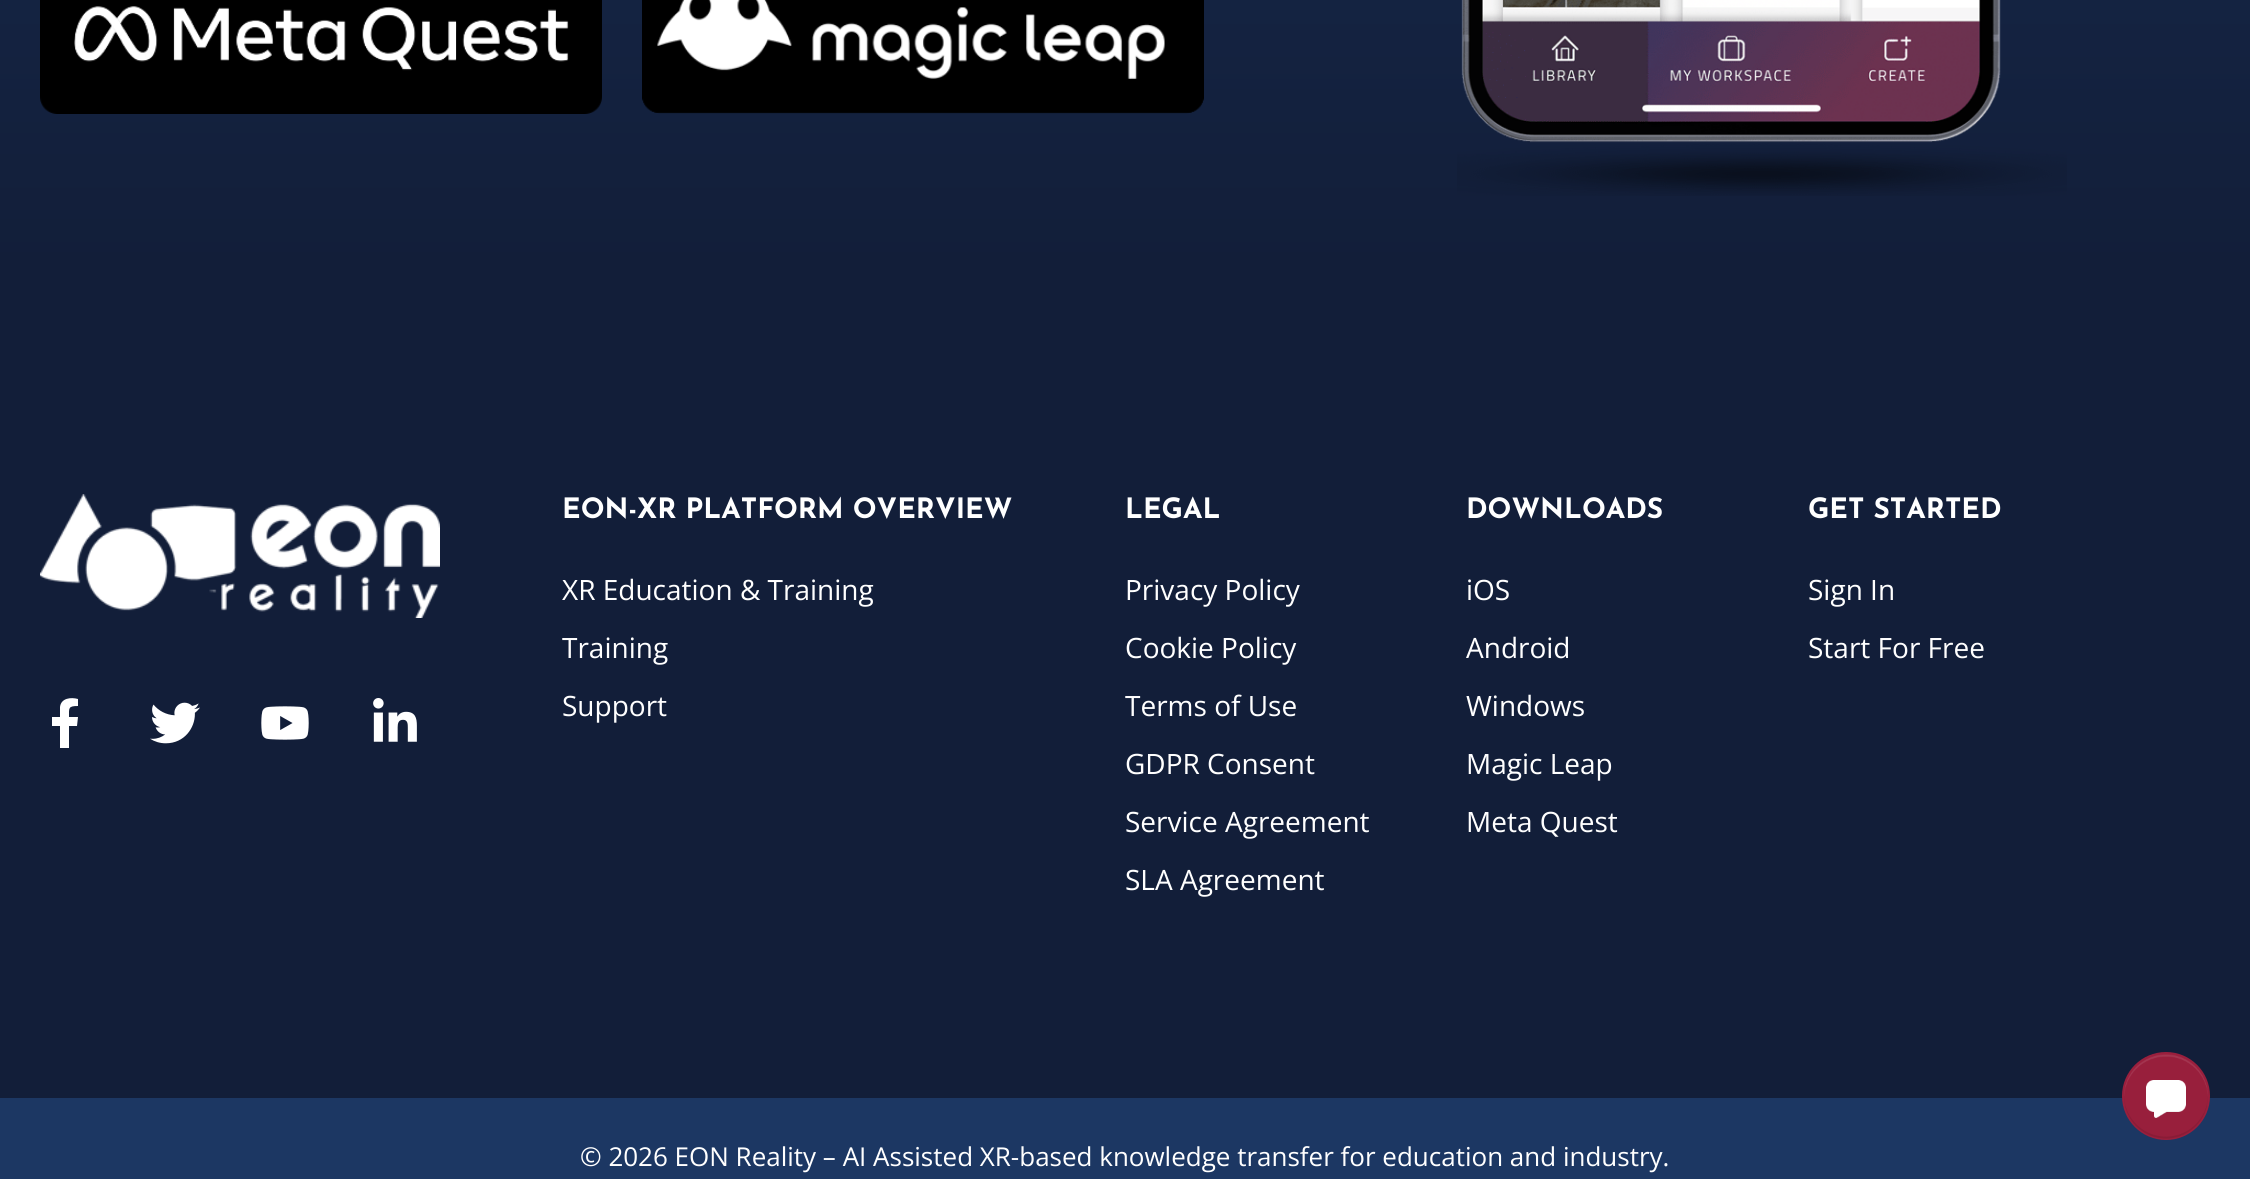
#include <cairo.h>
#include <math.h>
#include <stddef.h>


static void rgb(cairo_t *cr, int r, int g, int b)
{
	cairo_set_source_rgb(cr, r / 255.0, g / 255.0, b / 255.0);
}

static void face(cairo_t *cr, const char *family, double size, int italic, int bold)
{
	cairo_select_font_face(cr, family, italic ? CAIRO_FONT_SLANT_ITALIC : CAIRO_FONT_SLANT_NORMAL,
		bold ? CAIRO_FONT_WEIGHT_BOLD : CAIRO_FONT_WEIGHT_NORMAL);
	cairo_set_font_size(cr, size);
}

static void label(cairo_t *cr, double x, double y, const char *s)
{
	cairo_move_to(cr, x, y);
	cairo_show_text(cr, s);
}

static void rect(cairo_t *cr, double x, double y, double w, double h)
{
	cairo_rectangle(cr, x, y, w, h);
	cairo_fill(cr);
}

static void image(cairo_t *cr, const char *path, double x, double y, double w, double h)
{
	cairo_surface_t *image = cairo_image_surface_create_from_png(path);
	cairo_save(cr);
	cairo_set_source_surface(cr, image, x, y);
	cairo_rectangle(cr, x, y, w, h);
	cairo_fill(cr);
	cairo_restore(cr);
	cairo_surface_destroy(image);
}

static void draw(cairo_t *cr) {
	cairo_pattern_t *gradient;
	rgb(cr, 255, 255, 255);
	cairo_paint(cr);
	gradient = cairo_pattern_create_linear(1125, -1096, 1125, 1098);
	cairo_pattern_add_color_stop_rgba(gradient, 0, 0.11, 0.216, 0.388, 1);
	cairo_pattern_add_color_stop_rgba(gradient, 0.62, 0.071, 0.118, 0.224, 1);
	cairo_set_source(cr, gradient);
	cairo_pattern_destroy(gradient);
	rect(cr, 0, 0, 2250, 1098);
	image(cr, "image0.png", 40, 0, 562, 114);
	image(cr, "image1.png", 642, 0, 562, 114);
	image(cr, "image2.png", 1457, 0, 610, 196);
	image(cr, "image3.png", 40, 494, 400, 124);
	rgb(cr, 255, 255, 255);
	cairo_new_path(cr);
	cairo_move_to(cr, 77, 726);
	cairo_line_to(cr, 78, 717);
	cairo_line_to(cr, 69, 717);
	cairo_curve_to(cr, 69, 708, 68, 706, 78, 706);
	cairo_line_to(cr, 78, 699);
	cairo_curve_to(cr, 71, 697, 61, 698, 60, 707);
	cairo_line_to(cr, 60, 717);
	cairo_line_to(cr, 52, 717);
	cairo_line_to(cr, 52, 726);
	cairo_line_to(cr, 60, 726);
	cairo_line_to(cr, 60, 748);
	cairo_line_to(cr, 69, 748);
	cairo_line_to(cr, 69, 726);
	cairo_close_path(cr);
	cairo_fill(cr);
	image(cr, "image4.png", 150, 702, 50, 42);
	image(cr, "image5.png", 261, 706, 48, 34);
	image(cr, "image6.png", 373, 698, 44, 44);
	face(cr, "Josefin Sans", 28, 0, 1);
	label(cr, 562, 518, "EON-XR PLATFORM OVERVIEW");
	face(cr, "Open Sans", 28, 0, 0);
	label(cr, 562, 600, "XR Education & Training");
	label(cr, 562, 658, "Training");
	label(cr, 562, 716, "Support");
	face(cr, "Josefin Sans", 28, 0, 1);
	label(cr, 1125, 518, "LEGAL");
	face(cr, "Open Sans", 28, 0, 0);
	label(cr, 1125, 600, "Privacy Policy");
	label(cr, 1125, 658, "Cookie Policy");
	label(cr, 1125, 716, "Terms of Use");
	label(cr, 1125, 774, "GDPR Consent");
	label(cr, 1125, 832, "Service Agreement");
	label(cr, 1125, 890, "SLA Agreement");
	face(cr, "Josefin Sans", 28, 0, 1);
	label(cr, 1466, 518, "DOWNLOADS");
	face(cr, "Open Sans", 28, 0, 0);
	label(cr, 1466, 600, "iOS");
	label(cr, 1466, 658, "Android");
	label(cr, 1466, 716, "Windows");
	label(cr, 1466, 774, "Magic Leap");
	label(cr, 1466, 832, "Meta Quest");
	face(cr, "Josefin Sans", 28, 0, 1);
	label(cr, 1808, 518, "GET STARTED");
	face(cr, "Open Sans", 28, 0, 0);
	label(cr, 1808, 600, "Sign In");
	label(cr, 1808, 658, "Start For Free");
	rgb(cr, 28, 55, 99);
	rect(cr, 0, 1098, 2250, 81);
	face(cr, "Open Sans", 26, 0, 0);
	rgb(cr, 255, 255, 255);
	label(cr, 580, 1166, "© 2026 EON Reality – AI Assisted XR-based knowledge transfer for education and industry.");
	rgb(cr, 154, 31, 61);
	cairo_new_path(cr);
	cairo_arc(cr, 2166, 1096, 44, 0, 2 * M_PI);
	cairo_fill(cr);
	image(cr, "image7.png", 2124, 1054, 84, 85);
}

int main(void) {
	cairo_surface_t *surface = cairo_image_surface_create(CAIRO_FORMAT_RGB24, 2250, 1179);
	cairo_t *cr = cairo_create(surface);
	cairo_font_options_t *options = cairo_font_options_create();
	cairo_font_options_set_hint_metrics(options, CAIRO_HINT_METRICS_OFF);
	cairo_font_options_set_hint_style(options, CAIRO_HINT_STYLE_NONE);
	cairo_set_font_options(cr, options);
	cairo_set_miter_limit(cr, 4);
	draw(cr);
	cairo_surface_write_to_png(surface, "render.png");
	cairo_font_options_destroy(options);
	cairo_destroy(cr);
	cairo_surface_destroy(surface);
	return 0;
}
